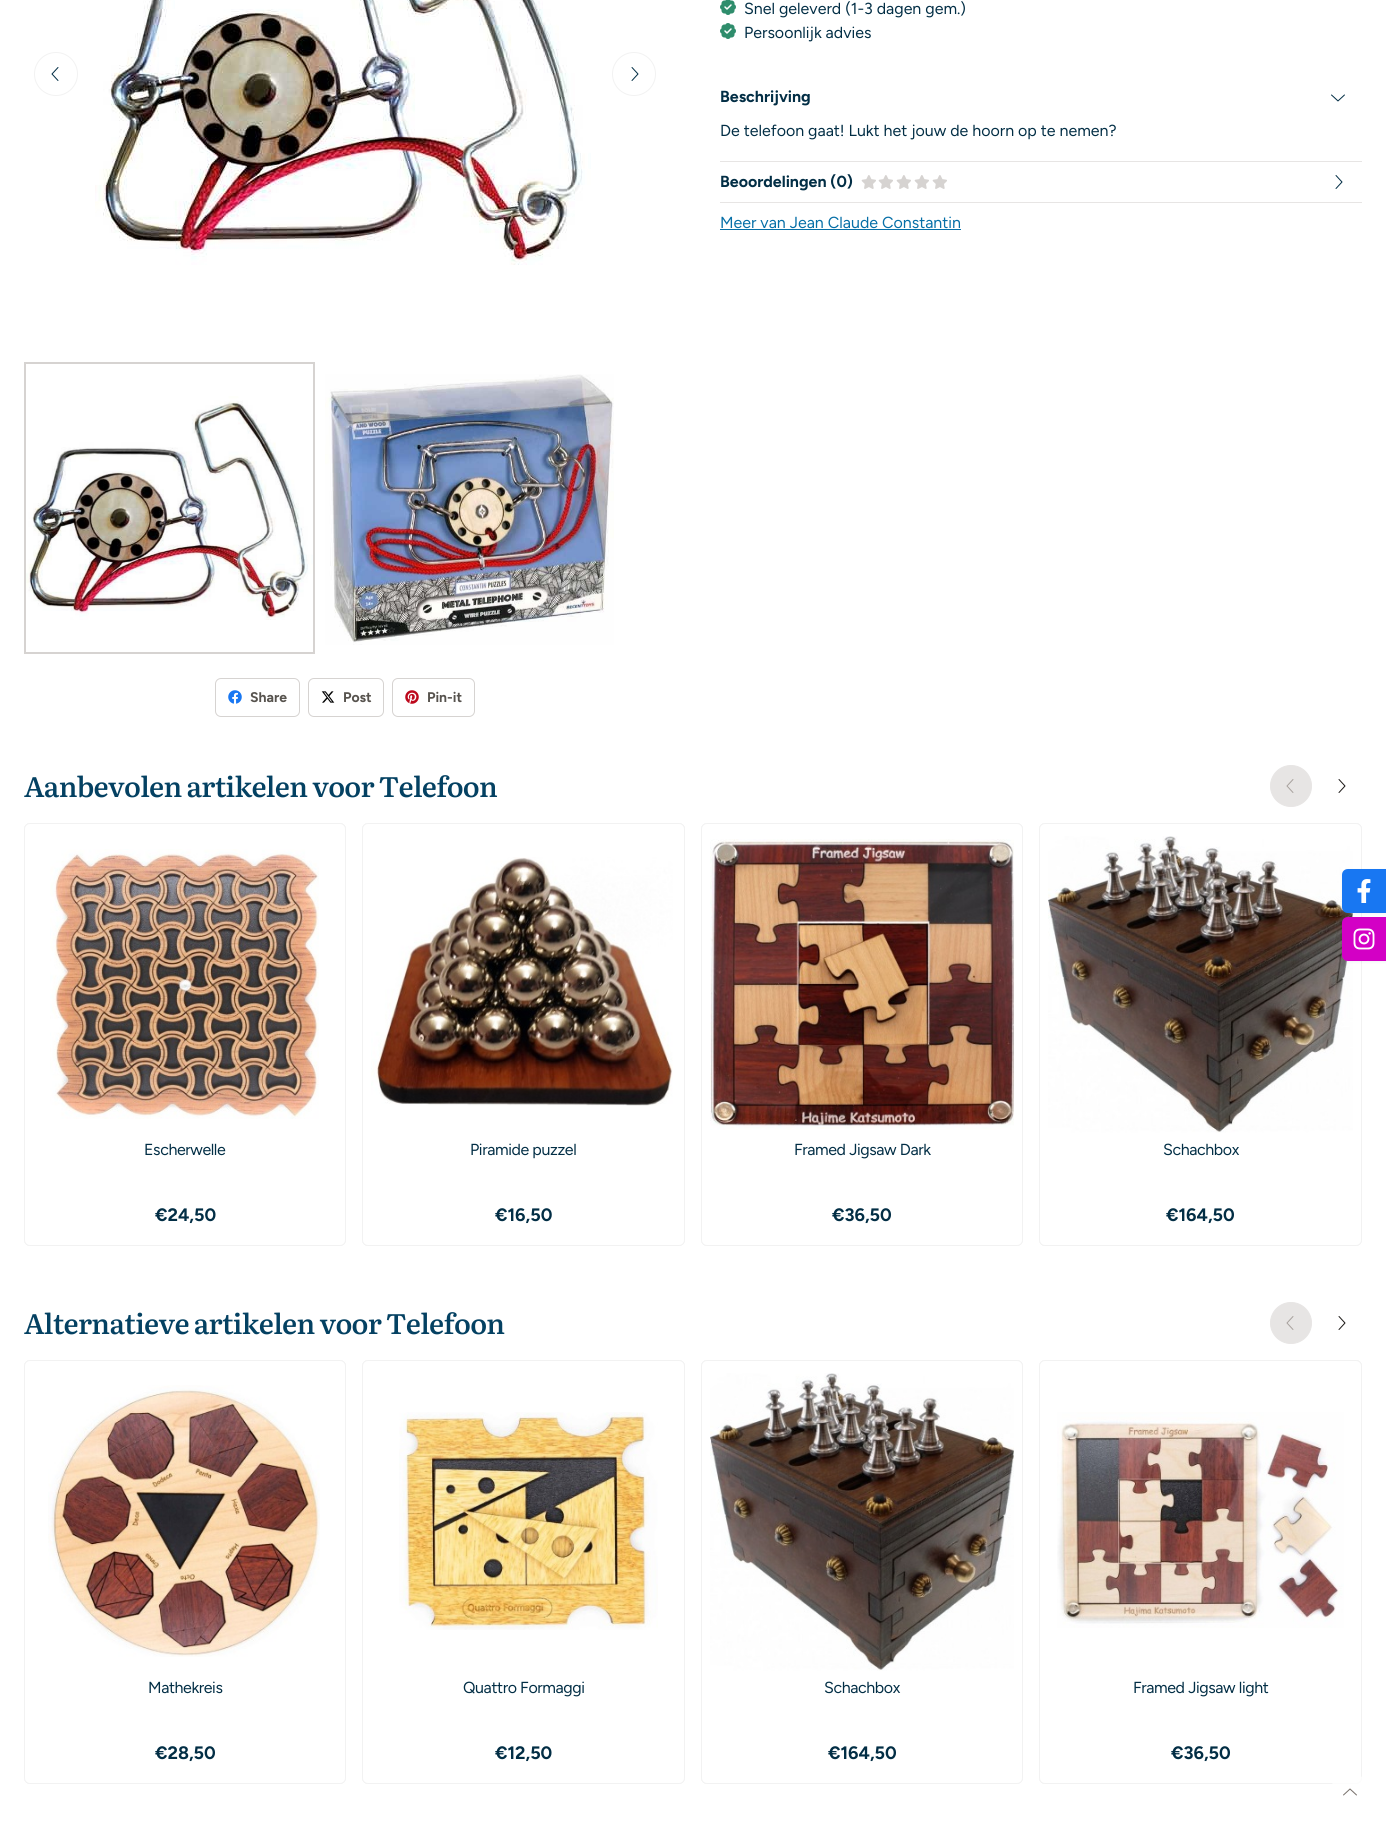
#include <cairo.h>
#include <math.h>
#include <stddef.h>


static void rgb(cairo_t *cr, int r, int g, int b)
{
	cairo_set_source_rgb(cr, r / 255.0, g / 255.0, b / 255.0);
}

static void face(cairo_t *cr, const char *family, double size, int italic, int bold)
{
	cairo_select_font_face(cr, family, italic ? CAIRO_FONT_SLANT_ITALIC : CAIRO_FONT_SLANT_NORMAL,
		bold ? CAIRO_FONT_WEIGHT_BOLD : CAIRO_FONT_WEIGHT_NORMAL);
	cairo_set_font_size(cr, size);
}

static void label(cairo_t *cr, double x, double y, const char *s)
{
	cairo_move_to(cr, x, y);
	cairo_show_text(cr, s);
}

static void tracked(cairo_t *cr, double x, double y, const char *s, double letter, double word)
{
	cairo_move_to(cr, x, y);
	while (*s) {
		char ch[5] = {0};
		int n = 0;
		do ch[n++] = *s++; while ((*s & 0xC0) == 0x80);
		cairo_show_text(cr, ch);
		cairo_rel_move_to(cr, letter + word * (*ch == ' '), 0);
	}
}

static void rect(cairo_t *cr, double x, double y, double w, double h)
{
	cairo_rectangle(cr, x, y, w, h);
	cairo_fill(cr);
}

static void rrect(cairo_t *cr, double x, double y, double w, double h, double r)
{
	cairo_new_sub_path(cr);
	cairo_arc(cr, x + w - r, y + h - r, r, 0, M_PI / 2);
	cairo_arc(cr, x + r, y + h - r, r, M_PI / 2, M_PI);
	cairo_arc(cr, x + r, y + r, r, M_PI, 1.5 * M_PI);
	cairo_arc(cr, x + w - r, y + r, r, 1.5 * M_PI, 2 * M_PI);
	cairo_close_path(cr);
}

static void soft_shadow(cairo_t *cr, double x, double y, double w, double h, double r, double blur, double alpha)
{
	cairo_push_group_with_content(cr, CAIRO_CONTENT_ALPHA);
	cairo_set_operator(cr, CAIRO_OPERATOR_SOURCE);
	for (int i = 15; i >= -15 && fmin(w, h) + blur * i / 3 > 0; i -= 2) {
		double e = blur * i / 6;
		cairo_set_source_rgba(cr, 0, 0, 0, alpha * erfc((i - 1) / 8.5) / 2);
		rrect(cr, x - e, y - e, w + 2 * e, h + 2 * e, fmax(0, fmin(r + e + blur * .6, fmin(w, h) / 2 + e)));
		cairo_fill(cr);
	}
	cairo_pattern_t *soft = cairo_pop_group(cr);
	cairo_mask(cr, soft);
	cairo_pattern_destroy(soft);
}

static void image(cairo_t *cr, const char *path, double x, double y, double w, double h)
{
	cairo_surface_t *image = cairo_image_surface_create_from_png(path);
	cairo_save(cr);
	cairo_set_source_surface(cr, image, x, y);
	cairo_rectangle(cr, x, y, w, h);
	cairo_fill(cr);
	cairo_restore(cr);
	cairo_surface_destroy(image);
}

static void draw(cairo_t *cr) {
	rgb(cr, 255, 255, 255);
	cairo_paint(cr);
	image(cr, "image0.png", 720, 0, 16, 15);
	face(cr, "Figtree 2 Light", 16, 0, 0);
	rgb(cr, 2, 46, 69);
	label(cr, 744, 14, "Snel geleverd (1-3 dagen gem.)");
	image(cr, "image1.png", 720, 23, 16, 16);
	label(cr, 744, 38, "Persoonlijk advies");
	face(cr, "Figtree Light", 16, 0, 0);
	label(cr, 720, 102, "Beschrijving");
	image(cr, "image2.png", 1331, 94, 14, 8);
	rgb(cr, 231, 229, 228);
	rect(cr, 720, 161, 642, 1);
	face(cr, "Figtree 2 Light", 16, 0, 0);
	rgb(cr, 2, 46, 69);
	label(cr, 720, 136, "De telefoon gaat! Lukt het jouw de hoorn op te nemen?");
	rgb(cr, 231, 229, 228);
	rect(cr, 720, 202, 642, 1);
	face(cr, "Figtree Light", 16, 0, 0);
	rgb(cr, 2, 46, 69);
	label(cr, 720, 187, "Beoordelingen (0)");
	image(cr, "image3.png", 861, 175, 15, 14);
	image(cr, "image3.png", 878, 175, 15, 14);
	image(cr, "image3.png", 896, 175, 15, 14);
	image(cr, "image3.png", 914, 175, 15, 14);
	image(cr, "image3.png", 932, 175, 15, 14);
	image(cr, "image4.png", 1335, 175, 8, 14);
	face(cr, "Figtree 2 Light", 16, 0, 0);
	rgb(cr, 6, 111, 167);
	label(cr, 720, 228, "Meer van Jean Claude Constantin");
	rect(cr, 720, 229, 241, 1);
	cairo_new_path(cr);
	cairo_arc(cr, 56, 74, 21.5, 0, 2 * M_PI);
	rgb(cr, 242, 242, 242);
	cairo_set_line_width(cr, 1);
	cairo_stroke(cr);
	image(cr, "image5.png", 51, 67, 8, 14);
	image(cr, "image6.png", 95, 0, 496, 265);
	cairo_arc(cr, 634, 74, 21.5, 0, 2 * M_PI);
	cairo_stroke(cr);
	image(cr, "image4.png", 631, 67, 8, 14);
	image(cr, "image7.png", 26, 396, 287, 224);
	cairo_rectangle(cr, 25, 363, 289, 290);
	rgb(cr, 214, 211, 209);
	cairo_set_line_width(cr, 2);
	cairo_stroke(cr);
	image(cr, "image8.png", 325, 374, 289, 271);
	rrect(cr, 215.5, 678.5, 84, 38, 5.5);
	cairo_set_line_width(cr, 1);
	cairo_stroke(cr);
	image(cr, "image9.png", 228, 690, 14, 14);
	face(cr, "Figtree Light", 14, 0, 0);
	rgb(cr, 87, 83, 78);
	label(cr, 250, 702, "Share");
	rrect(cr, 308.5, 678.5, 75, 38, 5.5);
	rgb(cr, 214, 211, 209);
	cairo_stroke(cr);
	image(cr, "image10.png", 321, 691, 14, 12);
	rgb(cr, 87, 83, 78);
	label(cr, 343, 702, "Post");
	rrect(cr, 392.5, 678.5, 82, 38, 5.5);
	rgb(cr, 214, 211, 209);
	cairo_stroke(cr);
	image(cr, "image11.png", 405, 690, 14, 14);
	rgb(cr, 87, 83, 78);
	label(cr, 427, 702, "Pin-it");
	face(cr, "Literata Medium", 28, 0, 0);
	rgb(cr, 4, 65, 98);
	tracked(cr, 24, 797, "Aanbevolen artikelen voor Telefoon", -0.7, 0);
	rgb(cr, 231, 229, 228);
	cairo_new_path(cr);
	cairo_arc(cr, 1291, 786, 20.5, 0, 2 * M_PI);
	cairo_fill_preserve(cr);
	cairo_stroke(cr);
	image(cr, "image12.png", 1286, 779, 8, 14);
	image(cr, "image13.png", 1338, 779, 8, 14);
	rrect(cr, 24.5, 823.5, 321, 422, 5.5);
	rgb(cr, 242, 242, 242);
	cairo_stroke(cr);
	rgb(cr, 255, 255, 255);
	rrect(cr, 24.5, 823.5, 321, 422, 5.5);
	cairo_fill_preserve(cr);
	rgb(cr, 242, 242, 242);
	cairo_stroke(cr);
	image(cr, "image14.png", 50, 849, 269, 270);
	face(cr, "Figtree 2 Light", 16, 0, 0);
	rgb(cr, 2, 46, 69);
	tracked(cr, 144, 1155, "Escherwelle", -0.4, 0);
	face(cr, "Figtree Light", 18, 0, 0);
	label(cr, 155, 1221, "€24,50");
	rrect(cr, 362.5, 823.5, 322, 422, 5.5);
	rgb(cr, 242, 242, 242);
	cairo_stroke(cr);
	rgb(cr, 255, 255, 255);
	rrect(cr, 362.5, 823.5, 322, 422, 5.5);
	cairo_fill_preserve(cr);
	rgb(cr, 242, 242, 242);
	cairo_stroke(cr);
	image(cr, "image15.png", 371, 857, 302, 249);
	face(cr, "Figtree 2 Light", 16, 0, 0);
	rgb(cr, 2, 46, 69);
	tracked(cr, 470, 1155, "Piramide puzzel", -0.4, 0);
	face(cr, "Figtree Light", 18, 0, 0);
	label(cr, 495, 1221, "€16,50");
	rrect(cr, 701.5, 823.5, 321, 422, 5.5);
	rgb(cr, 242, 242, 242);
	cairo_stroke(cr);
	rgb(cr, 255, 255, 255);
	rrect(cr, 701.5, 823.5, 321, 422, 5.5);
	cairo_fill_preserve(cr);
	rgb(cr, 242, 242, 242);
	cairo_stroke(cr);
	image(cr, "image16.png", 710, 839, 304, 291);
	face(cr, "Figtree 2 Light", 16, 0, 0);
	rgb(cr, 2, 46, 69);
	tracked(cr, 794, 1155, "Framed Jigsaw Dark", -0.4, 0);
	face(cr, "Figtree Light", 18, 0, 0);
	label(cr, 832, 1221, "€36,50");
	rrect(cr, 1039.5, 823.5, 322, 422, 5.5);
	rgb(cr, 242, 242, 242);
	cairo_stroke(cr);
	rgb(cr, 255, 255, 255);
	rrect(cr, 1039.5, 823.5, 322, 422, 5.5);
	cairo_fill_preserve(cr);
	rgb(cr, 242, 242, 242);
	cairo_stroke(cr);
	image(cr, "image17.png", 1048, 836, 305, 297);
	face(cr, "Figtree 2 Light", 16, 0, 0);
	rgb(cr, 2, 46, 69);
	tracked(cr, 1163, 1155, "Schachbox", -0.4, 0);
	face(cr, "Figtree Light", 18, 0, 0);
	label(cr, 1166, 1221, "€164,50");
	face(cr, "Literata Medium", 28, 0, 0);
	rgb(cr, 4, 65, 98);
	tracked(cr, 24, 1334, "Alternatieve artikelen voor Telefoon", -0.7, 0);
	rgb(cr, 231, 229, 228);
	cairo_new_path(cr);
	cairo_arc(cr, 1291, 1323, 20.5, 0, 2 * M_PI);
	cairo_fill_preserve(cr);
	cairo_stroke(cr);
	image(cr, "image12.png", 1286, 1316, 8, 14);
	image(cr, "image13.png", 1338, 1316, 8, 14);
	rrect(cr, 24.5, 1360.5, 321, 423, 5.5);
	rgb(cr, 242, 242, 242);
	cairo_stroke(cr);
	rgb(cr, 255, 255, 255);
	rrect(cr, 24.5, 1360.5, 321, 423, 5.5);
	cairo_fill_preserve(cr);
	rgb(cr, 242, 242, 242);
	cairo_stroke(cr);
	image(cr, "image18.png", 48, 1385, 272, 272);
	face(cr, "Figtree 2 Light", 16, 0, 0);
	rgb(cr, 2, 46, 69);
	tracked(cr, 148, 1693, "Mathekreis", -0.4, 0);
	face(cr, "Figtree Light", 18, 0, 0);
	label(cr, 155, 1759, "€28,50");
	rrect(cr, 362.5, 1360.5, 322, 423, 5.5);
	rgb(cr, 242, 242, 242);
	cairo_stroke(cr);
	rgb(cr, 255, 255, 255);
	rrect(cr, 362.5, 1360.5, 322, 423, 5.5);
	cairo_fill_preserve(cr);
	rgb(cr, 242, 242, 242);
	cairo_stroke(cr);
	image(cr, "image19.png", 399, 1412, 259, 218);
	face(cr, "Figtree 2 Light", 16, 0, 0);
	rgb(cr, 2, 46, 69);
	tracked(cr, 463, 1693, "Quattro Formaggi", -0.4, 0);
	face(cr, "Figtree Light", 18, 0, 0);
	label(cr, 495, 1759, "€12,50");
	rrect(cr, 701.5, 1360.5, 321, 423, 5.5);
	rgb(cr, 242, 242, 242);
	cairo_stroke(cr);
	rgb(cr, 255, 255, 255);
	rrect(cr, 701.5, 1360.5, 321, 423, 5.5);
	cairo_fill_preserve(cr);
	rgb(cr, 242, 242, 242);
	cairo_stroke(cr);
	image(cr, "image20.png", 710, 1373, 304, 298);
	face(cr, "Figtree 2 Light", 16, 0, 0);
	rgb(cr, 2, 46, 69);
	tracked(cr, 824, 1693, "Schachbox", -0.4, 0);
	face(cr, "Figtree Light", 18, 0, 0);
	label(cr, 828, 1759, "€164,50");
	rrect(cr, 1039.5, 1360.5, 322, 423, 5.5);
	rgb(cr, 242, 242, 242);
	cairo_stroke(cr);
	rgb(cr, 255, 255, 255);
	rrect(cr, 1039.5, 1360.5, 322, 423, 5.5);
	cairo_fill_preserve(cr);
	rgb(cr, 242, 242, 242);
	cairo_stroke(cr);
	image(cr, "image21.png", 1057, 1412, 287, 216);
	face(cr, "Figtree 2 Light", 16, 0, 0);
	rgb(cr, 2, 46, 69);
	tracked(cr, 1133, 1693, "Framed Jigsaw light", -0.4, 0);
	face(cr, "Figtree Light", 18, 0, 0);
	label(cr, 1171, 1759, "€36,50");
	rgb(cr, 11, 26, 34);
	soft_shadow(cr, 1342, 870, 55, 44, 6, 1.5, 0.05);
	rgb(cr, 24, 119, 242);
	cairo_new_path(cr);
	cairo_move_to(cr, 1348, 869);
	cairo_line_to(cr, 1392, 869);
	cairo_line_to(cr, 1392, 913);
	cairo_line_to(cr, 1348, 913);
	cairo_curve_to(cr, 1344.5, 913, 1342, 910.5, 1342, 907);
	cairo_line_to(cr, 1342, 875);
	cairo_curve_to(cr, 1342, 871.5, 1344.5, 869, 1348, 869);
	cairo_close_path(cr);
	cairo_fill(cr);
	image(cr, "image22.png", 1357, 879, 14, 24);
	rgb(cr, 11, 26, 34);
	soft_shadow(cr, 1342, 918, 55, 44, 6, 1.5, 0.05);
	rgb(cr, 211, 0, 197);
	cairo_new_path(cr);
	cairo_move_to(cr, 1348, 917);
	cairo_line_to(cr, 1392, 917);
	cairo_line_to(cr, 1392, 961);
	cairo_line_to(cr, 1348, 961);
	cairo_curve_to(cr, 1344.5, 961, 1342, 958.5, 1342, 955);
	cairo_line_to(cr, 1342, 923);
	cairo_curve_to(cr, 1342, 919.5, 1344.5, 917, 1348, 917);
	cairo_close_path(cr);
	cairo_fill(cr);
	image(cr, "image23.png", 1353, 928, 22, 22);
	cairo_set_source_rgba(cr, 1, 1, 1, 0.75);
	cairo_arc(cr, 1350, 1793, 20, 0, 2 * M_PI);
	cairo_fill(cr);
	image(cr, "image24.png", 1343, 1788, 14, 8);
}

int main(void) {
	cairo_surface_t *surface = cairo_image_surface_create(CAIRO_FORMAT_RGB24, 1386, 1829);
	cairo_t *cr = cairo_create(surface);
	cairo_font_options_t *options = cairo_font_options_create();
	cairo_font_options_set_hint_metrics(options, CAIRO_HINT_METRICS_OFF);
	cairo_font_options_set_hint_style(options, CAIRO_HINT_STYLE_NONE);
	cairo_set_font_options(cr, options);
	cairo_set_miter_limit(cr, 4);
	draw(cr);
	cairo_surface_write_to_png(surface, "render.png");
	cairo_font_options_destroy(options);
	cairo_destroy(cr);
	cairo_surface_destroy(surface);
	return 0;
}
